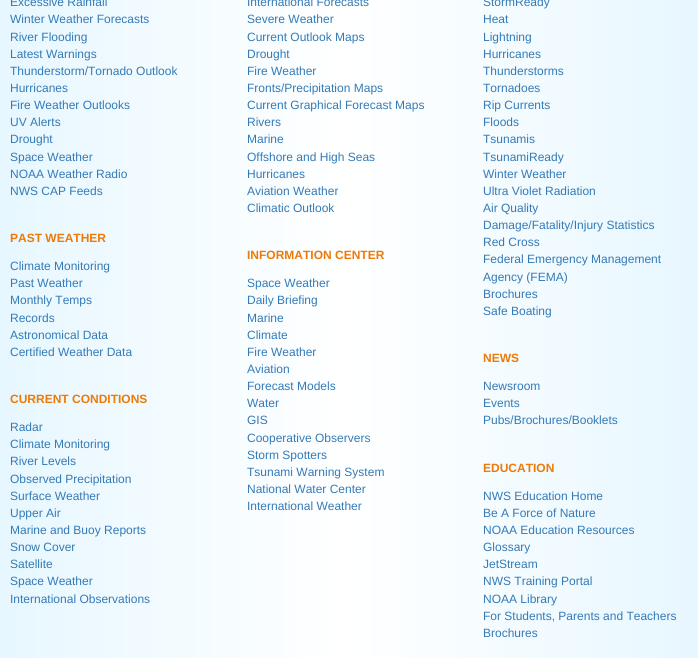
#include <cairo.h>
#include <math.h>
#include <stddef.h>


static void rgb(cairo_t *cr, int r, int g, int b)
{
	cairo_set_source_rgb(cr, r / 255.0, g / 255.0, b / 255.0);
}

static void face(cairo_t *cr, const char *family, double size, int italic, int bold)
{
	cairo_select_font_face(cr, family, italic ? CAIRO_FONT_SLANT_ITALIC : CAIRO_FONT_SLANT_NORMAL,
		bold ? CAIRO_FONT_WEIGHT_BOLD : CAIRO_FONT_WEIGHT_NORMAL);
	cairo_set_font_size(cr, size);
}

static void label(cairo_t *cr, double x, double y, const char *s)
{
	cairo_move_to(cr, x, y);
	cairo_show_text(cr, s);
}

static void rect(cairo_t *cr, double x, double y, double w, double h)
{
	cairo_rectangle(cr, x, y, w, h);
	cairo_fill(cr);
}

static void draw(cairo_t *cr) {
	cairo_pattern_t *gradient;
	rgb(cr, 255, 255, 255);
	cairo_paint(cr);
	gradient = cairo_pattern_create_linear(0, 422, 698, 422);
	cairo_pattern_add_color_stop_rgba(gradient, 0, 0.906, 0.969, 1, 1);
	cairo_pattern_add_color_stop_rgba(gradient, 0.5, 1, 1, 1, 1);
	cairo_pattern_add_color_stop_rgba(gradient, 1, 0.906, 0.969, 1, 1);
	cairo_set_source(cr, gradient);
	cairo_pattern_destroy(gradient);
	rect(cr, 0, 0, 698, 658);
	face(cr, "Liberation Sans", 12, 0, 0);
	rgb(cr, 51, 122, 183);
	label(cr, 10, 6, "Excessive Rainfall");
	label(cr, 10, 23, "Winter Weather Forecasts");
	label(cr, 10, 41, "River Flooding");
	label(cr, 10, 58, "Latest Warnings");
	label(cr, 10, 75, "Thunderstorm/Tornado Outlook");
	label(cr, 10, 92, "Hurricanes");
	label(cr, 10, 109, "Fire Weather Outlooks");
	label(cr, 10, 126, "UV Alerts");
	label(cr, 10, 143, "Drought");
	label(cr, 10, 161, "Space Weather");
	label(cr, 10, 178, "NOAA Weather Radio");
	label(cr, 10, 195, "NWS CAP Feeds");
	label(cr, 247, 6, "International Forecasts");
	label(cr, 247, 23, "Severe Weather");
	label(cr, 247, 41, "Current Outlook Maps");
	label(cr, 247, 58, "Drought");
	label(cr, 247, 75, "Fire Weather");
	label(cr, 247, 92, "Fronts/Precipitation Maps");
	label(cr, 247, 109, "Current Graphical Forecast Maps");
	label(cr, 247, 126, "Rivers");
	label(cr, 247, 143, "Marine");
	label(cr, 247, 161, "Offshore and High Seas");
	label(cr, 247, 178, "Hurricanes");
	label(cr, 247, 195, "Aviation Weather");
	label(cr, 247, 212, "Climatic Outlook");
	label(cr, 483, 6, "StormReady");
	label(cr, 483, 23, "Heat");
	label(cr, 483, 41, "Lightning");
	label(cr, 483, 58, "Hurricanes");
	label(cr, 483, 75, "Thunderstorms");
	label(cr, 483, 92, "Tornadoes");
	label(cr, 483, 109, "Rip Currents");
	label(cr, 483, 126, "Floods");
	label(cr, 483, 143, "Tsunamis");
	label(cr, 483, 161, "TsunamiReady");
	label(cr, 483, 178, "Winter Weather");
	label(cr, 483, 195, "Ultra Violet Radiation");
	label(cr, 483, 212, "Air Quality");
	label(cr, 483, 229, "Damage/Fatality/Injury Statistics");
	label(cr, 483, 246, "Red Cross");
	label(cr, 483, 263, "Federal Emergency Management");
	label(cr, 483, 281, "Agency (FEMA)");
	label(cr, 483, 298, "Brochures");
	label(cr, 483, 315, "Safe Boating");
	face(cr, "Liberation Sans", 12, 0, 1);
	rgb(cr, 237, 122, 8);
	label(cr, 10, 242, "PAST WEATHER");
	face(cr, "Liberation Sans", 12, 0, 0);
	rgb(cr, 51, 122, 183);
	label(cr, 10, 270, "Climate Monitoring");
	label(cr, 10, 287, "Past Weather");
	label(cr, 10, 304, "Monthly Temps");
	label(cr, 10, 322, "Records");
	label(cr, 10, 339, "Astronomical Data");
	label(cr, 10, 356, "Certified Weather Data");
	face(cr, "Liberation Sans", 12, 0, 1);
	rgb(cr, 237, 122, 8);
	label(cr, 247, 259, "INFORMATION CENTER");
	face(cr, "Liberation Sans", 12, 0, 0);
	rgb(cr, 51, 122, 183);
	label(cr, 247, 287, "Space Weather");
	label(cr, 247, 304, "Daily Briefing");
	label(cr, 247, 322, "Marine");
	label(cr, 247, 339, "Climate");
	label(cr, 247, 356, "Fire Weather");
	label(cr, 247, 373, "Aviation");
	label(cr, 247, 390, "Forecast Models");
	label(cr, 247, 407, "Water");
	label(cr, 247, 424, "GIS");
	label(cr, 247, 442, "Cooperative Observers");
	label(cr, 247, 459, "Storm Spotters");
	label(cr, 247, 476, "Tsunami Warning System");
	label(cr, 247, 493, "National Water Center");
	label(cr, 247, 510, "International Weather");
	face(cr, "Liberation Sans", 12, 0, 1);
	rgb(cr, 237, 122, 8);
	label(cr, 483, 362, "NEWS");
	face(cr, "Liberation Sans", 12, 0, 0);
	rgb(cr, 51, 122, 183);
	label(cr, 483, 390, "Newsroom");
	label(cr, 483, 407, "Events");
	label(cr, 483, 424, "Pubs/Brochures/Booklets");
	face(cr, "Liberation Sans", 12, 0, 1);
	rgb(cr, 237, 122, 8);
	label(cr, 10, 403, "CURRENT CONDITIONS");
	face(cr, "Liberation Sans", 12, 0, 0);
	rgb(cr, 51, 122, 183);
	label(cr, 10, 431, "Radar");
	label(cr, 10, 448, "Climate Monitoring");
	label(cr, 10, 465, "River Levels");
	label(cr, 10, 483, "Observed Precipitation");
	label(cr, 10, 500, "Surface Weather");
	label(cr, 10, 517, "Upper Air");
	label(cr, 10, 534, "Marine and Buoy Reports");
	label(cr, 10, 551, "Snow Cover");
	label(cr, 10, 568, "Satellite");
	label(cr, 10, 585, "Space Weather");
	label(cr, 10, 603, "International Observations");
	face(cr, "Liberation Sans", 12, 0, 1);
	rgb(cr, 237, 122, 8);
	label(cr, 483, 472, "EDUCATION");
	face(cr, "Liberation Sans", 12, 0, 0);
	rgb(cr, 51, 122, 183);
	label(cr, 483, 500, "NWS Education Home");
	label(cr, 483, 517, "Be A Force of Nature");
	label(cr, 483, 534, "NOAA Education Resources");
	label(cr, 483, 551, "Glossary");
	label(cr, 483, 568, "JetStream");
	label(cr, 483, 585, "NWS Training Portal");
	label(cr, 483, 603, "NOAA Library");
	label(cr, 483, 620, "For Students, Parents and Teachers");
	label(cr, 483, 637, "Brochures");
}

int main(void) {
	cairo_surface_t *surface = cairo_image_surface_create(CAIRO_FORMAT_RGB24, 698, 658);
	cairo_t *cr = cairo_create(surface);
	cairo_font_options_t *options = cairo_font_options_create();
	cairo_font_options_set_hint_metrics(options, CAIRO_HINT_METRICS_OFF);
	cairo_font_options_set_hint_style(options, CAIRO_HINT_STYLE_NONE);
	cairo_set_font_options(cr, options);
	cairo_set_miter_limit(cr, 4);
	draw(cr);
	cairo_surface_write_to_png(surface, "render.png");
	cairo_font_options_destroy(options);
	cairo_destroy(cr);
	cairo_surface_destroy(surface);
	return 0;
}
